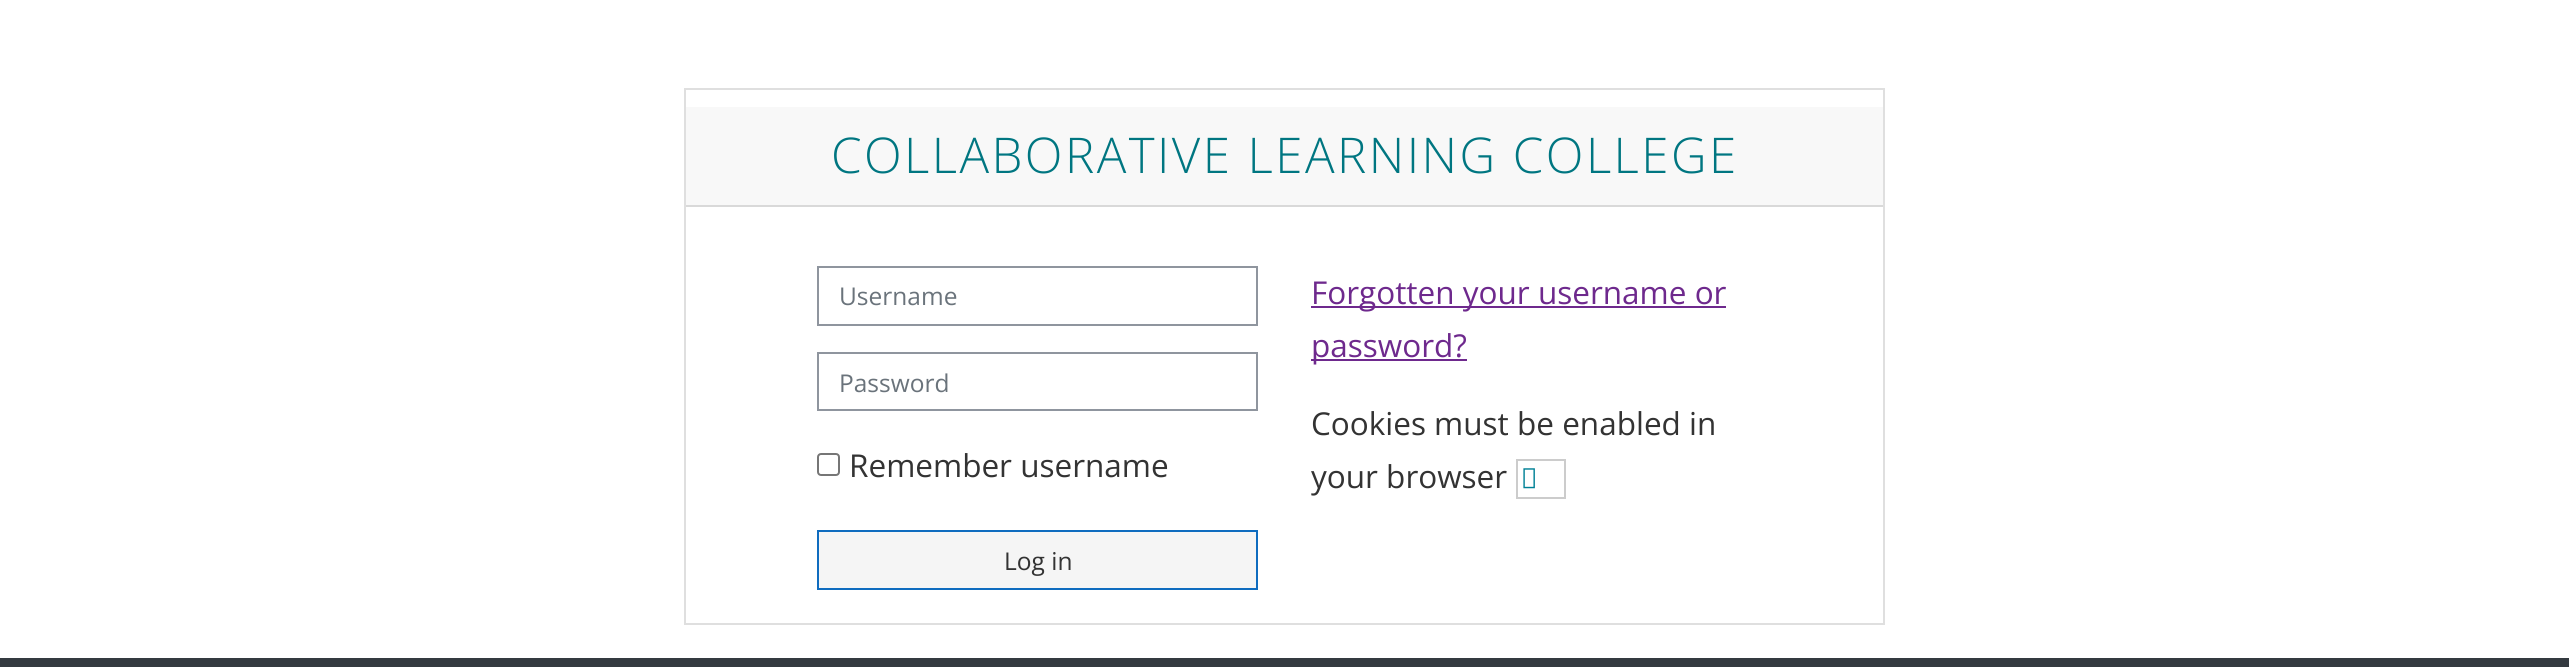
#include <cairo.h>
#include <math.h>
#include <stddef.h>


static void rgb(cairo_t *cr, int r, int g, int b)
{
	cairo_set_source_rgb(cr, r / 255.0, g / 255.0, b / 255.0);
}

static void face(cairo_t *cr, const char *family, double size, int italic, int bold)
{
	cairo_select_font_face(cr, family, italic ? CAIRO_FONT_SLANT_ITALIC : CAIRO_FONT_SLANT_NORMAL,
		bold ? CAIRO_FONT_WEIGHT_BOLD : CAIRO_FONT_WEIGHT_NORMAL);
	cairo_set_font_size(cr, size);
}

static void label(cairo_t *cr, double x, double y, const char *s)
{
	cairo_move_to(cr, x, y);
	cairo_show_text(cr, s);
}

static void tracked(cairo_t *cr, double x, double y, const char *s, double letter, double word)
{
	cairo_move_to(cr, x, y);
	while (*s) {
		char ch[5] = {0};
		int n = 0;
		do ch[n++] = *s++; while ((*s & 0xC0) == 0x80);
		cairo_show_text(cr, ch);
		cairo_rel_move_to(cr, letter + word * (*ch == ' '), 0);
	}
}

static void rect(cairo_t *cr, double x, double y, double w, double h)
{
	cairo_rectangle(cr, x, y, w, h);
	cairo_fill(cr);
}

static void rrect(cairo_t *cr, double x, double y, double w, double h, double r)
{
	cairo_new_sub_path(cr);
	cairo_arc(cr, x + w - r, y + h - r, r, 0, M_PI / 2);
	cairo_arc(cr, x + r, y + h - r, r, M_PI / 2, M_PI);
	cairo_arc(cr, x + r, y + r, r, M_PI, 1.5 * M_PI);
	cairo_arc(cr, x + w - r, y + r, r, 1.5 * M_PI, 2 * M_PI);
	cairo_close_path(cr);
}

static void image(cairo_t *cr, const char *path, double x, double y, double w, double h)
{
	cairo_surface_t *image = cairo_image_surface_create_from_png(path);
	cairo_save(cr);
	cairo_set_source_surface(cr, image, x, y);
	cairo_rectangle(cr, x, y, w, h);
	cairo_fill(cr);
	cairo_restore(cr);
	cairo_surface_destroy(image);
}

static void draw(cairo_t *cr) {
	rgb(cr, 255, 255, 255);
	cairo_paint(cr);
	cairo_rectangle(cr, 685, 89, 1199, 535);
	rgb(cr, 223, 223, 223);
	cairo_stroke(cr);
	rgb(cr, 248, 248, 248);
	rect(cr, 686, 107, 1197, 98);
	rgb(cr, 217, 217, 217);
	rect(cr, 686, 205, 1197, 2);
	face(cr, "Open Sans Light", 49.25, 0, 0);
	rgb(cr, 0, 118, 129);
	tracked(cr, 831, 173, "COLLABORATIVE LEARNING COLLEGE", 2.45, 0);
	cairo_rectangle(cr, 818, 267, 439, 58);
	rgb(cr, 143, 149, 158);
	cairo_stroke(cr);
	face(cr, "Open Sans", 24.5, 0, 0);
	rgb(cr, 106, 115, 123);
	label(cr, 839, 305, "Username");
	cairo_rectangle(cr, 818, 353, 439, 57);
	rgb(cr, 143, 149, 158);
	cairo_stroke(cr);
	rgb(cr, 106, 115, 123);
	label(cr, 839, 392, "Password");
	rrect(cr, 818, 454, 21, 21, 3);
	rgb(cr, 118, 118, 118);
	cairo_stroke(cr);
	face(cr, "Open Sans", 31.5, 0, 0);
	rgb(cr, 51, 51, 51);
	label(cr, 849, 477, "Remember username");
	rgb(cr, 245, 245, 245);
	cairo_rectangle(cr, 818, 531, 439, 58);
	cairo_fill_preserve(cr);
	rgb(cr, 15, 108, 191);
	cairo_stroke(cr);
	face(cr, "Open Sans", 24.5, 0, 0);
	rgb(cr, 51, 51, 51);
	label(cr, 1004, 570, "Log in");
	rgb(cr, 110, 41, 141);
	rect(cr, 1311, 306, 415, 2);
	face(cr, "Open Sans", 31.5, 0, 0);
	label(cr, 1311, 304, "Forgotten your username or");
	rect(cr, 1311, 359, 156, 2);
	label(cr, 1311, 357, "password?");
	rgb(cr, 51, 51, 51);
	label(cr, 1311, 435, "Cookies must be enabled in");
	label(cr, 1311, 488, "your browser");
	cairo_rectangle(cr, 1517, 460, 48, 38);
	rgb(cr, 204, 204, 204);
	cairo_stroke(cr);
	image(cr, "image0.png", 1523, 468, 12, 21);
	rgb(cr, 52, 58, 64);
	rect(cr, 0, 658, 2569, 9);
}

int main(void) {
	cairo_surface_t *surface = cairo_image_surface_create(CAIRO_FORMAT_RGB24, 2569, 667);
	cairo_t *cr = cairo_create(surface);
	cairo_font_options_t *options = cairo_font_options_create();
	cairo_font_options_set_hint_metrics(options, CAIRO_HINT_METRICS_OFF);
	cairo_font_options_set_hint_style(options, CAIRO_HINT_STYLE_NONE);
	cairo_set_font_options(cr, options);
	cairo_set_miter_limit(cr, 4);
	draw(cr);
	cairo_surface_write_to_png(surface, "render.png");
	cairo_font_options_destroy(options);
	cairo_destroy(cr);
	cairo_surface_destroy(surface);
	return 0;
}
